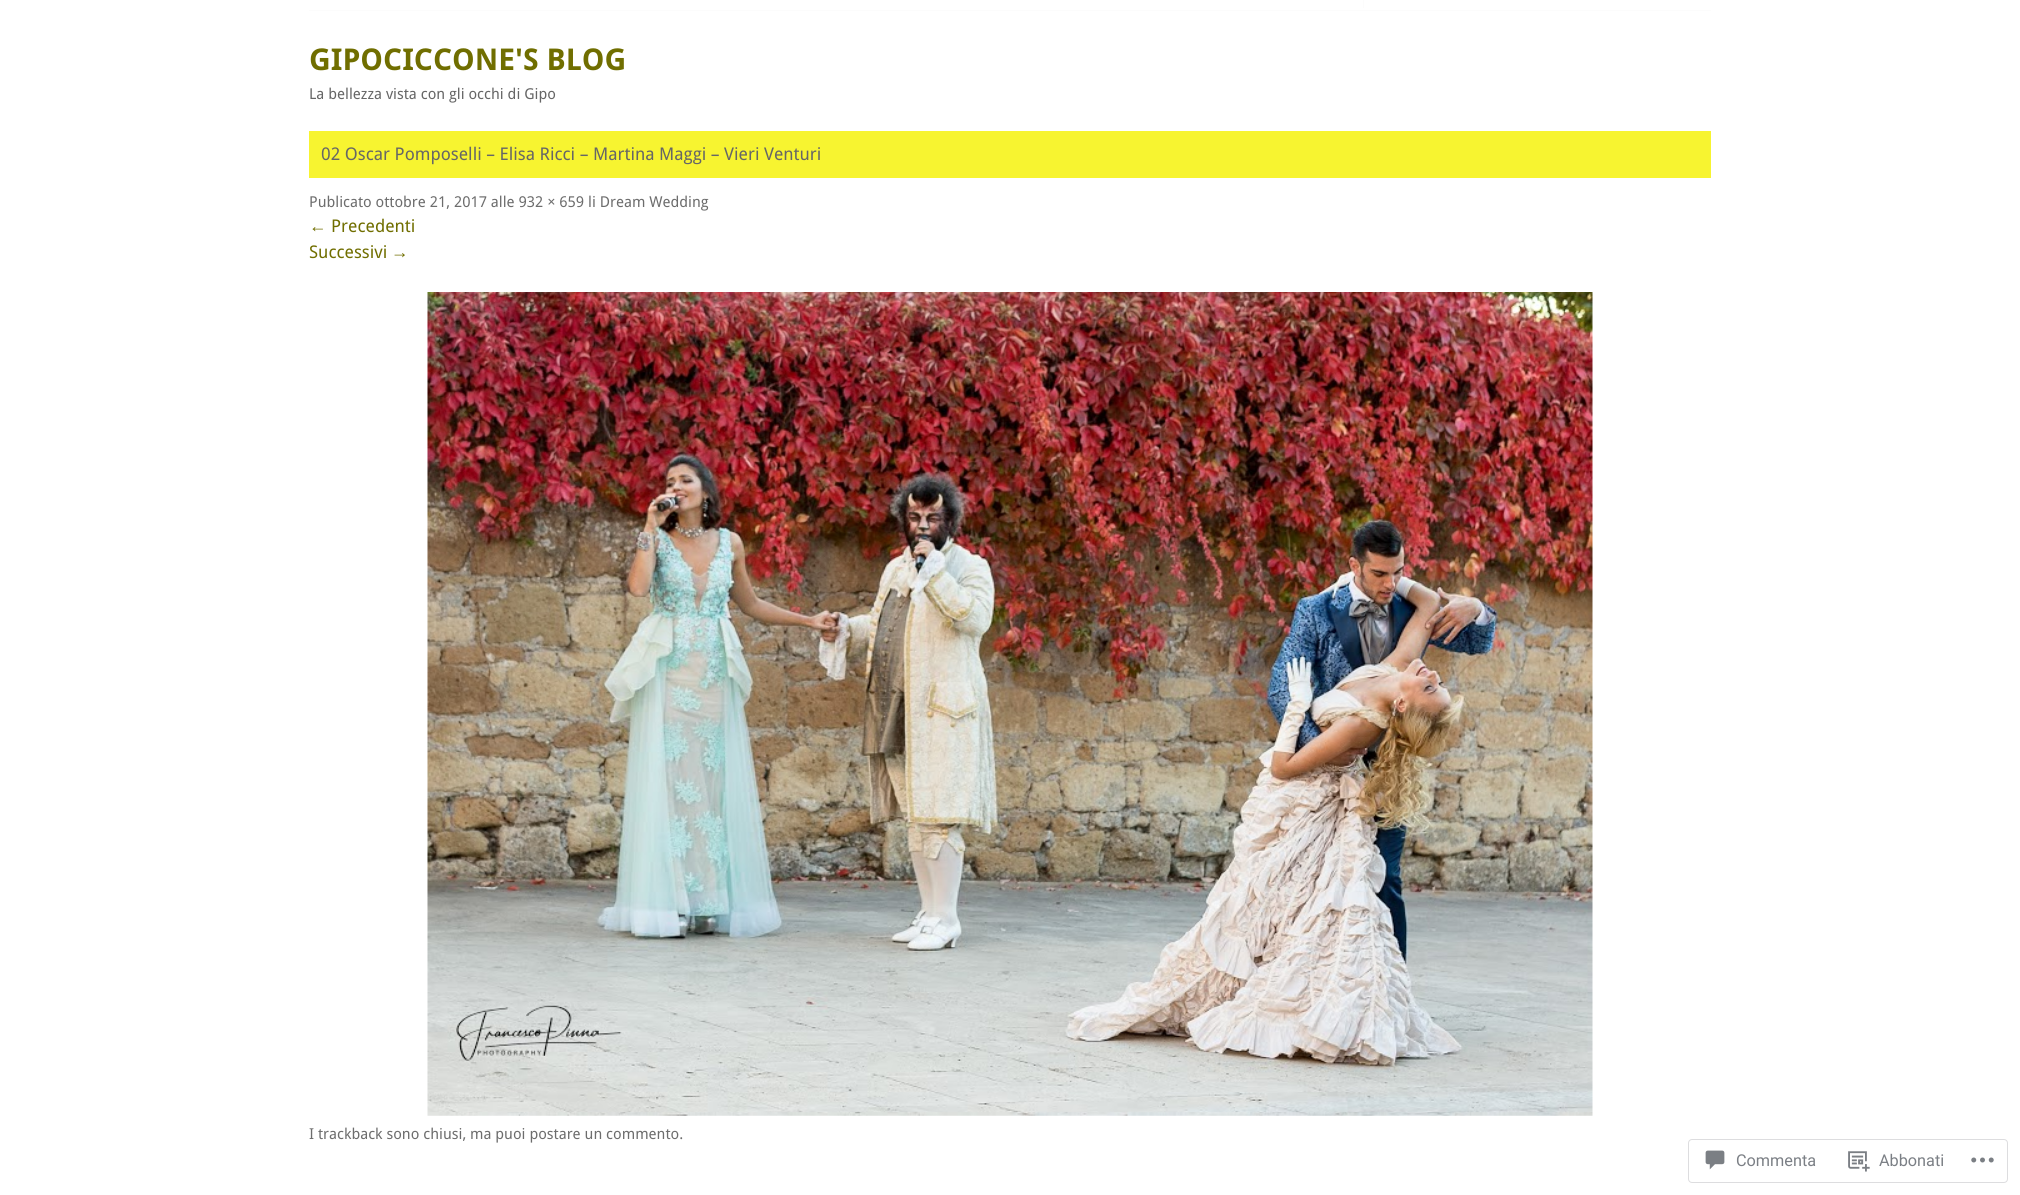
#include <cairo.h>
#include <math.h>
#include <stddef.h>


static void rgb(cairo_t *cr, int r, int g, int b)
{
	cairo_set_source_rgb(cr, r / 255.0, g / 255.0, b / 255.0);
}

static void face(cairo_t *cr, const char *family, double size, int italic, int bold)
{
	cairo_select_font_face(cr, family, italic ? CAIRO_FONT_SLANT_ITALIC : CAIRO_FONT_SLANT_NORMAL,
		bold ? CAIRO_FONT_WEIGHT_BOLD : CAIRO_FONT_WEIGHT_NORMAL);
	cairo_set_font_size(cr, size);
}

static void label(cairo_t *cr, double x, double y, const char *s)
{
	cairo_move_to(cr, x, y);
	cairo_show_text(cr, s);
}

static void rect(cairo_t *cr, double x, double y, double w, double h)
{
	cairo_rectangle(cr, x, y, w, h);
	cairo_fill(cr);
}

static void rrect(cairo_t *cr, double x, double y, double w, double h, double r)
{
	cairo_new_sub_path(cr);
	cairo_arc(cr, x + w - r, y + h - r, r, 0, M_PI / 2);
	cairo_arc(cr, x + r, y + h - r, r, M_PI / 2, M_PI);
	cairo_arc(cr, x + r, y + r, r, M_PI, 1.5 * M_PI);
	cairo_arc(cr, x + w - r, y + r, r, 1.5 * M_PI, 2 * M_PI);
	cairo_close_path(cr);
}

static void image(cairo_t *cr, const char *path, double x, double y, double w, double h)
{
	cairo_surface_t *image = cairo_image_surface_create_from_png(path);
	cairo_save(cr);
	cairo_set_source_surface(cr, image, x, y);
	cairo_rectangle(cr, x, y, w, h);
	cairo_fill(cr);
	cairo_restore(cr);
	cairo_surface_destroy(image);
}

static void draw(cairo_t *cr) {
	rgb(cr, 255, 255, 255);
	cairo_paint(cr);
	rgb(cr, 252, 252, 252);
	rect(cr, 309, 10, 1402, 1);
	rect(cr, 1363, 0, 1, 8);
	face(cr, "Droid Sans", 30, 0, 1);
	rgb(cr, 112, 110, 0);
	label(cr, 309, 70, "GIPOCICCONE'S BLOG");
	face(cr, "Droid Sans", 15, 0, 0);
	rgb(cr, 102, 102, 102);
	label(cr, 309, 99, "La bellezza vista con gli occhi di Gipo");
	rgb(cr, 247, 244, 48);
	rect(cr, 309, 131, 1402, 47);
	face(cr, "Droid Sans", 17.5, 0, 0);
	rgb(cr, 102, 102, 102);
	label(cr, 321, 160, "02 Oscar Pomposelli – Elisa Ricci – Martina Maggi – Vieri Venturi");
	face(cr, "Droid Sans", 15, 0, 0);
	rgb(cr, 109, 109, 109);
	label(cr, 309, 207, "Publicato ottobre 21, 2017 alle 932 × 659 li Dream Wedding");
	face(cr, "Liberation Sans", 17.5, 0, 0);
	rgb(cr, 112, 110, 0);
	label(cr, 309, 232, "←");
	face(cr, "Droid Sans", 17.5, 0, 0);
	label(cr, 331, 232, "Precedenti");
	label(cr, 309, 258, "Successivi");
	face(cr, "Liberation Sans", 17.5, 0, 0);
	label(cr, 391, 258, "→");
	image(cr, "image0.png", 427, 292, 1166, 824);
	face(cr, "Droid Sans", 15, 0, 0);
	rgb(cr, 109, 109, 109);
	label(cr, 309, 1139, "I trackback sono chiusi, ma puoi postare un commento.");
	rrect(cr, 1688.5, 1139.5, 319, 43, 3.5);
	rgb(cr, 221, 221, 223);
	cairo_set_line_width(cr, 1);
	cairo_stroke(cr);
	image(cr, "image1.png", 1705, 1150, 20, 20);
	face(cr, "Roboto", 16.25, 0, 0);
	rgb(cr, 123, 127, 133);
	label(cr, 1736, 1166, "Commenta");
	image(cr, "image2.png", 1848, 1151, 22, 21);
	label(cr, 1879, 1166, "Abbonati");
	image(cr, "image3.png", 1971, 1157, 23, 6);
}

int main(void) {
	cairo_surface_t *surface = cairo_image_surface_create(CAIRO_FORMAT_RGB24, 2020, 1195);
	cairo_t *cr = cairo_create(surface);
	cairo_font_options_t *options = cairo_font_options_create();
	cairo_font_options_set_hint_metrics(options, CAIRO_HINT_METRICS_OFF);
	cairo_font_options_set_hint_style(options, CAIRO_HINT_STYLE_NONE);
	cairo_set_font_options(cr, options);
	cairo_set_miter_limit(cr, 4);
	draw(cr);
	cairo_surface_write_to_png(surface, "render.png");
	cairo_font_options_destroy(options);
	cairo_destroy(cr);
	cairo_surface_destroy(surface);
	return 0;
}
